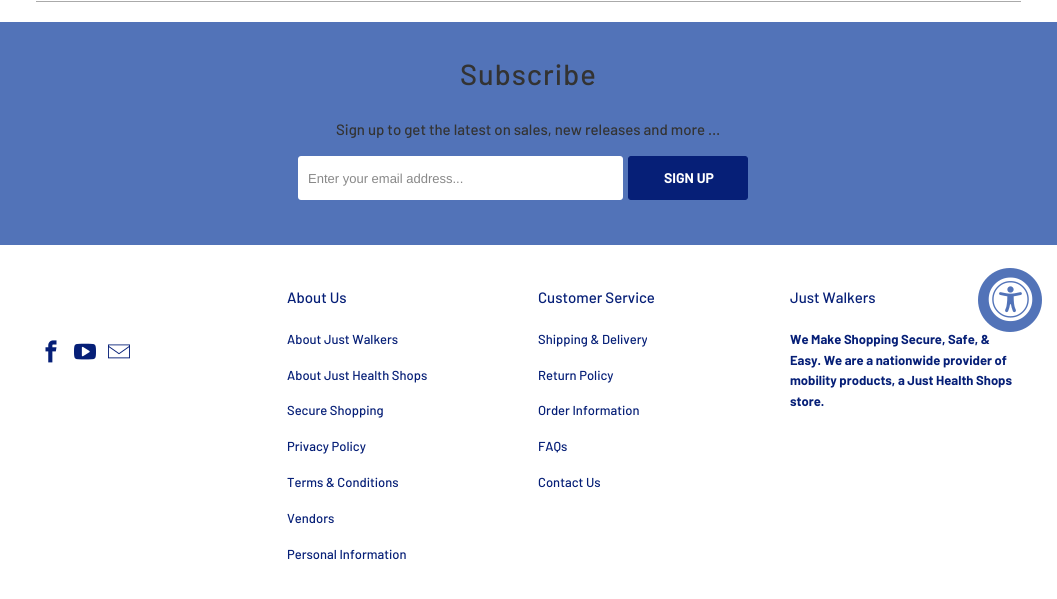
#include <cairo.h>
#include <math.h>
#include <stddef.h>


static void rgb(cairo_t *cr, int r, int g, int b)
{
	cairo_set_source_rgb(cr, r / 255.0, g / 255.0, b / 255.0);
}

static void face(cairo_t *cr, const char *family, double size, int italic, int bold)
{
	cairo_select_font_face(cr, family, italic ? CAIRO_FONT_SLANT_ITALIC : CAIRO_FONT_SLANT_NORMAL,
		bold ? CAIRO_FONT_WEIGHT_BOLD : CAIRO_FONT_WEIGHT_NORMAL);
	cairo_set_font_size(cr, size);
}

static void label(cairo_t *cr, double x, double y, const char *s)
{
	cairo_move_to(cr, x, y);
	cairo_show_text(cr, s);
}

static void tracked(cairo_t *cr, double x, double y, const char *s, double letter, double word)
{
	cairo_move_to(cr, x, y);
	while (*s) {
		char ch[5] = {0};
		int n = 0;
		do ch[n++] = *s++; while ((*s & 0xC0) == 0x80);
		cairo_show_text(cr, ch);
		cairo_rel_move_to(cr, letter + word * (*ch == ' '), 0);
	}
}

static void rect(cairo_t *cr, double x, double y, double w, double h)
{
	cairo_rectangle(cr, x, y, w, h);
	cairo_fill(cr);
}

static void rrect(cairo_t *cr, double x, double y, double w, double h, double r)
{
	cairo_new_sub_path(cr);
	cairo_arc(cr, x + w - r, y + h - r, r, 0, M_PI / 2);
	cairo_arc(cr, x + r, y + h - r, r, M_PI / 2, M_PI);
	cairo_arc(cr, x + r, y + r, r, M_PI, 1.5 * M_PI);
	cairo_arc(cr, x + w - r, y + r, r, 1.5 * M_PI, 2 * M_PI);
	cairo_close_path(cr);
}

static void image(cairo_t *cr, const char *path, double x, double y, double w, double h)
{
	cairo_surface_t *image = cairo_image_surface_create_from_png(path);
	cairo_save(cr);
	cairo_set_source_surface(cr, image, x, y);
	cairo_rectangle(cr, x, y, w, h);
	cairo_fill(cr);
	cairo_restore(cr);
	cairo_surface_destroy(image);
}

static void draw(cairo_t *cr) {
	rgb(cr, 255, 255, 255);
	cairo_paint(cr);
	rgb(cr, 170, 170, 170);
	rect(cr, 36, 1, 985, 1);
	rgb(cr, 82, 115, 184);
	rect(cr, 0, 22, 1057, 223);
	face(cr, "Barlow Medium", 29, 0, 0);
	rgb(cr, 51, 51, 51);
	tracked(cr, 460, 85, "Subscribe", 1, 0);
	face(cr, "Barlow Medium", 15, 0, 0);
	label(cr, 336, 135, "Sign up to get the latest on sales, new releases and more …");
	rgb(cr, 255, 255, 255);
	rrect(cr, 298, 156, 325, 44, 3);
	cairo_fill(cr);
	face(cr, "Liberation Sans", 13, 0, 0);
	rgb(cr, 136, 136, 136);
	label(cr, 308, 183, "Enter your email address...");
	rgb(cr, 6, 31, 119);
	rrect(cr, 628.5, 156.5, 119, 43, 2.5);
	cairo_fill_preserve(cr);
	cairo_set_line_width(cr, 1);
	cairo_stroke(cr);
	face(cr, "Barlow", 14, 0, 1);
	rgb(cr, 255, 255, 255);
	label(cr, 664, 183, "SIGN UP");
	rgb(cr, 82, 115, 184);
	cairo_new_path(cr);
	cairo_arc(cr, 1010, 300, 32, 0, 2 * M_PI);
	cairo_fill(cr);
	image(cr, "image0.png", 988, 277, 45, 45);
	image(cr, "image1.png", 45, 340, 12, 23);
	image(cr, "image2.png", 74, 343, 22, 17);
	image(cr, "image3.png", 108, 344, 22, 15);
	face(cr, "Barlow Medium", 15, 0, 0);
	rgb(cr, 6, 31, 119);
	label(cr, 287, 303, "About Us");
	face(cr, "Barlow Medium", 13, 0, 0);
	label(cr, 287, 344, "About Just Walkers");
	label(cr, 287, 380, "About Just Health Shops");
	label(cr, 287, 415, "Secure Shopping");
	label(cr, 287, 451, "Privacy Policy");
	label(cr, 287, 487, "Terms & Conditions");
	label(cr, 287, 523, "Vendors");
	label(cr, 287, 559, "Personal Information");
	face(cr, "Barlow Medium", 15, 0, 0);
	label(cr, 538, 303, "Customer Service");
	face(cr, "Barlow Medium", 13, 0, 0);
	label(cr, 538, 344, "Shipping & Delivery");
	label(cr, 538, 380, "Return Policy");
	label(cr, 538, 415, "Order Information");
	label(cr, 538, 451, "FAQs");
	label(cr, 538, 487, "Contact Us");
	face(cr, "Barlow Medium", 15, 0, 0);
	label(cr, 790, 303, "Just Walkers");
	face(cr, "Barlow", 13, 0, 1);
	label(cr, 790, 344, "We Make Shopping Secure, Safe, &");
	label(cr, 790, 365, "Easy. We are a nationwide provider of");
	label(cr, 790, 385, "mobility products, a Just Health Shops");
	label(cr, 790, 406, "store.");
}

int main(void) {
	cairo_surface_t *surface = cairo_image_surface_create(CAIRO_FORMAT_RGB24, 1057, 599);
	cairo_t *cr = cairo_create(surface);
	cairo_font_options_t *options = cairo_font_options_create();
	cairo_font_options_set_hint_metrics(options, CAIRO_HINT_METRICS_OFF);
	cairo_font_options_set_hint_style(options, CAIRO_HINT_STYLE_NONE);
	cairo_set_font_options(cr, options);
	cairo_set_miter_limit(cr, 4);
	draw(cr);
	cairo_surface_write_to_png(surface, "render.png");
	cairo_font_options_destroy(options);
	cairo_destroy(cr);
	cairo_surface_destroy(surface);
	return 0;
}
